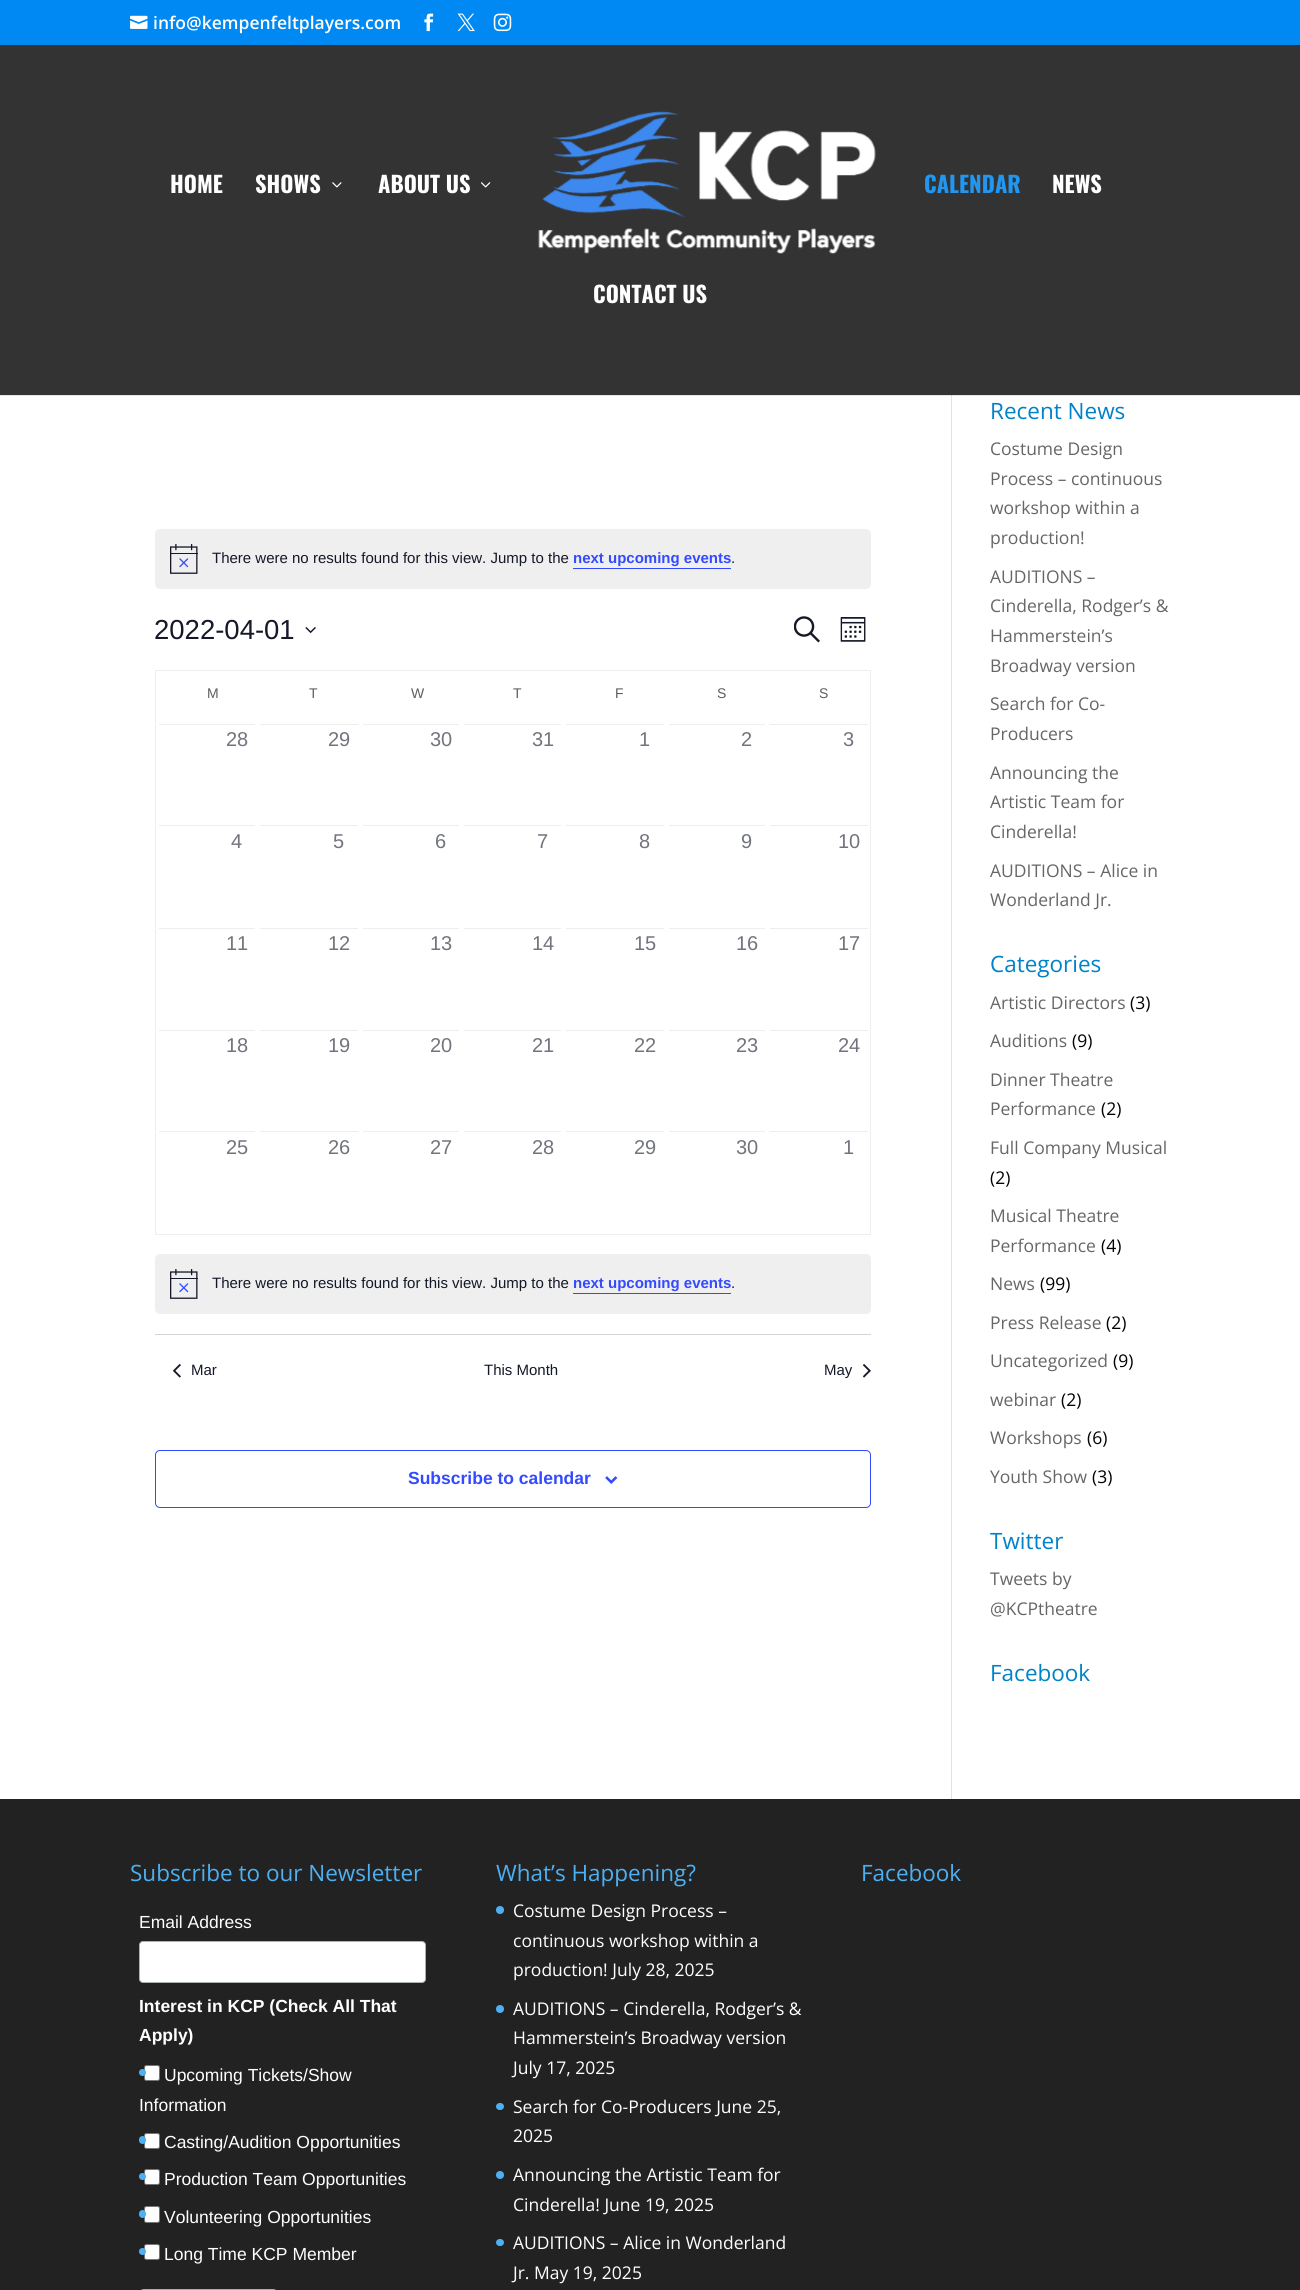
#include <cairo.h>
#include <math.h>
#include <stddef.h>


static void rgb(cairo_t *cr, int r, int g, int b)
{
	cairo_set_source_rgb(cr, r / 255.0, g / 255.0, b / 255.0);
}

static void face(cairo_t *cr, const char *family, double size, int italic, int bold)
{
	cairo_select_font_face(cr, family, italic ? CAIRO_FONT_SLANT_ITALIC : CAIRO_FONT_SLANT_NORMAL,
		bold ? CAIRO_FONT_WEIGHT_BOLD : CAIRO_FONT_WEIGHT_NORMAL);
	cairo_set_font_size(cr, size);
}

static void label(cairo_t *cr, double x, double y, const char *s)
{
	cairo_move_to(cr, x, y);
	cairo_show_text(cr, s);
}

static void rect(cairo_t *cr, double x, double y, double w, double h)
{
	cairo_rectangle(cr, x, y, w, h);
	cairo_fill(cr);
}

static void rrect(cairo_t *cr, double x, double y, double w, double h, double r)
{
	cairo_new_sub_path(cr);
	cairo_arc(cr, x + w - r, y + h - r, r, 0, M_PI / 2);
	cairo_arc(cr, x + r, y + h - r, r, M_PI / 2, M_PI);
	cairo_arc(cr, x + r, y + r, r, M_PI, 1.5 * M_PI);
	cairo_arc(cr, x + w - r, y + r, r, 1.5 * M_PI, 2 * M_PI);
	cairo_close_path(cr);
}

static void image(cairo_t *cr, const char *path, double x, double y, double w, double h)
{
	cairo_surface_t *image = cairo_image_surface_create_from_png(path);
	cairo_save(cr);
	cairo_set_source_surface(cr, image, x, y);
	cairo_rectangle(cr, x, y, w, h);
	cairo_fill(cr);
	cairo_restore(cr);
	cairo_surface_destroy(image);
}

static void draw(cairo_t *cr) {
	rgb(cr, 255, 255, 255);
	cairo_paint(cr);
	rgb(cr, 230, 230, 230);
	rect(cr, 0, 395, 1300, 1);
	rgb(cr, 0, 137, 242);
	rect(cr, 0, 0, 1300, 45);
	image(cr, "image0.png", 130, 15, 18, 14);
	face(cr, "Open Sans SemiBold", 17.5, 0, 0);
	rgb(cr, 255, 255, 255);
	label(cr, 153, 29, "info@kempenfeltplayers.com");
	image(cr, "image1.png", 424, 13, 10, 19);
	image(cr, "image2.png", 457, 13, 18, 19);
	image(cr, "image3.png", 493, 13, 19, 19);
	rgb(cr, 51, 51, 51);
	rect(cr, 0, 45, 1300, 350);
	face(cr, "Oswald", 22.5, 0, 1);
	rgb(cr, 255, 255, 255);
	label(cr, 170, 193, "HOME");
	label(cr, 255, 193, "SHOWS");
	image(cr, "image4.png", 332, 182, 10, 6);
	label(cr, 378, 193, "ABOUT US");
	image(cr, "image5.png", 481, 182, 10, 6);
	image(cr, "image6.png", 538, 111, 338, 143);
	rgb(cr, 33, 151, 242);
	label(cr, 924, 193, "CALENDAR");
	rgb(cr, 255, 255, 255);
	label(cr, 1052, 193, "NEWS");
	label(cr, 593, 303, "CONTACT US");
	rgb(cr, 226, 226, 226);
	rect(cr, 951, 396, 1, 1403);
	rgb(cr, 203, 203, 203);
	rect(cr, 951, 395, 1, 1);
	rgb(cr, 239, 239, 240);
	rrect(cr, 155, 529, 716, 60, 5);
	cairo_fill(cr);
	image(cr, "image7.png", 170, 544, 28, 30);
	face(cr, "Liberation Sans", 15, 0, 0);
	rgb(cr, 20, 24, 39);
	label(cr, 212, 563, "There were no results found for this view. Jump to the");
	face(cr, "Liberation Sans", 15, 0, 1);
	rgb(cr, 51, 74, 255);
	label(cr, 573, 563, "next upcoming events");
	rect(cr, 573, 568, 158, 1);
	face(cr, "Liberation Sans", 15, 0, 0);
	rgb(cr, 20, 24, 39);
	label(cr, 731, 563, ".");
	face(cr, "Liberation Sans", 27.5, 0, 0);
	label(cr, 154, 639, "2022-04-01");
	image(cr, "image8.png", 305, 627, 11, 7);
	image(cr, "image9.png", 794, 616, 26, 27);
	image(cr, "image10.png", 840, 617, 26, 25);
	rgb(cr, 238, 238, 238);
	rect(cr, 155, 670, 716, 1);
	rect(cr, 870, 670, 1, 565);
	rect(cr, 155, 1234, 716, 1);
	rect(cr, 155, 670, 1, 565);
	face(cr, "Liberation Sans", 14, 0, 0);
	rgb(cr, 93, 93, 93);
	label(cr, 207, 698, "M");
	label(cr, 309, 698, "T");
	label(cr, 411, 698, "W");
	label(cr, 513, 698, "T");
	label(cr, 615, 698, "F");
	label(cr, 717, 698, "S");
	label(cr, 819, 698, "S");
	rgb(cr, 238, 238, 238);
	rect(cr, 159, 724, 96, 1);
	face(cr, "Liberation Sans", 20, 0, 0);
	rgb(cr, 114, 116, 125);
	label(cr, 226, 746, "28");
	rgb(cr, 238, 238, 238);
	rect(cr, 260, 724, 98, 1);
	rgb(cr, 114, 116, 125);
	label(cr, 328, 746, "29");
	rgb(cr, 238, 238, 238);
	rect(cr, 363, 724, 96, 1);
	rgb(cr, 114, 116, 125);
	label(cr, 430, 746, "30");
	rgb(cr, 238, 238, 238);
	rect(cr, 464, 724, 97, 1);
	rgb(cr, 114, 116, 125);
	label(cr, 532, 746, "31");
	rgb(cr, 238, 238, 238);
	rect(cr, 566, 724, 98, 1);
	rgb(cr, 114, 116, 125);
	label(cr, 639, 746, "1");
	rgb(cr, 238, 238, 238);
	rect(cr, 669, 724, 96, 1);
	rgb(cr, 114, 116, 125);
	label(cr, 741, 746, "2");
	rgb(cr, 238, 238, 238);
	rect(cr, 770, 724, 98, 1);
	rgb(cr, 114, 116, 125);
	label(cr, 843, 746, "3");
	rgb(cr, 238, 238, 238);
	rect(cr, 159, 825, 96, 1);
	rgb(cr, 114, 116, 125);
	label(cr, 231, 848, "4");
	rgb(cr, 238, 238, 238);
	rect(cr, 260, 825, 98, 1);
	rgb(cr, 114, 116, 125);
	label(cr, 333, 848, "5");
	rgb(cr, 238, 238, 238);
	rect(cr, 363, 825, 96, 1);
	rgb(cr, 114, 116, 125);
	label(cr, 435, 848, "6");
	rgb(cr, 238, 238, 238);
	rect(cr, 464, 825, 97, 1);
	rgb(cr, 114, 116, 125);
	label(cr, 537, 848, "7");
	rgb(cr, 238, 238, 238);
	rect(cr, 566, 825, 98, 1);
	rgb(cr, 114, 116, 125);
	label(cr, 639, 848, "8");
	rgb(cr, 238, 238, 238);
	rect(cr, 669, 825, 96, 1);
	rgb(cr, 114, 116, 125);
	label(cr, 741, 848, "9");
	rgb(cr, 238, 238, 238);
	rect(cr, 770, 825, 98, 1);
	rgb(cr, 114, 116, 125);
	label(cr, 838, 848, "10");
	rgb(cr, 238, 238, 238);
	rect(cr, 159, 928, 96, 1);
	rgb(cr, 114, 116, 125);
	label(cr, 226, 950, "11");
	rgb(cr, 238, 238, 238);
	rect(cr, 260, 928, 98, 1);
	rgb(cr, 114, 116, 125);
	label(cr, 328, 950, "12");
	rgb(cr, 238, 238, 238);
	rect(cr, 363, 928, 96, 1);
	rgb(cr, 114, 116, 125);
	label(cr, 430, 950, "13");
	rgb(cr, 238, 238, 238);
	rect(cr, 464, 928, 97, 1);
	rgb(cr, 114, 116, 125);
	label(cr, 532, 950, "14");
	rgb(cr, 238, 238, 238);
	rect(cr, 566, 928, 98, 1);
	rgb(cr, 114, 116, 125);
	label(cr, 634, 950, "15");
	rgb(cr, 238, 238, 238);
	rect(cr, 669, 928, 96, 1);
	rgb(cr, 114, 116, 125);
	label(cr, 736, 950, "16");
	rgb(cr, 238, 238, 238);
	rect(cr, 770, 928, 98, 1);
	rgb(cr, 114, 116, 125);
	label(cr, 838, 950, "17");
	rgb(cr, 238, 238, 238);
	rect(cr, 159, 1030, 96, 1);
	rgb(cr, 114, 116, 125);
	label(cr, 226, 1052, "18");
	rgb(cr, 238, 238, 238);
	rect(cr, 260, 1030, 98, 1);
	rgb(cr, 114, 116, 125);
	label(cr, 328, 1052, "19");
	rgb(cr, 238, 238, 238);
	rect(cr, 363, 1030, 96, 1);
	rgb(cr, 114, 116, 125);
	label(cr, 430, 1052, "20");
	rgb(cr, 238, 238, 238);
	rect(cr, 464, 1030, 97, 1);
	rgb(cr, 114, 116, 125);
	label(cr, 532, 1052, "21");
	rgb(cr, 238, 238, 238);
	rect(cr, 566, 1030, 98, 1);
	rgb(cr, 114, 116, 125);
	label(cr, 634, 1052, "22");
	rgb(cr, 238, 238, 238);
	rect(cr, 669, 1030, 96, 1);
	rgb(cr, 114, 116, 125);
	label(cr, 736, 1052, "23");
	rgb(cr, 238, 238, 238);
	rect(cr, 770, 1030, 98, 1);
	rgb(cr, 114, 116, 125);
	label(cr, 838, 1052, "24");
	rgb(cr, 238, 238, 238);
	rect(cr, 159, 1131, 96, 1);
	rgb(cr, 114, 116, 125);
	label(cr, 226, 1154, "25");
	rgb(cr, 238, 238, 238);
	rect(cr, 260, 1131, 98, 1);
	rgb(cr, 114, 116, 125);
	label(cr, 328, 1154, "26");
	rgb(cr, 238, 238, 238);
	rect(cr, 363, 1131, 96, 1);
	rgb(cr, 114, 116, 125);
	label(cr, 430, 1154, "27");
	rgb(cr, 238, 238, 238);
	rect(cr, 464, 1131, 97, 1);
	rgb(cr, 114, 116, 125);
	label(cr, 532, 1154, "28");
	rgb(cr, 238, 238, 238);
	rect(cr, 566, 1131, 98, 1);
	rgb(cr, 114, 116, 125);
	label(cr, 634, 1154, "29");
	rgb(cr, 238, 238, 238);
	rect(cr, 669, 1131, 96, 1);
	rgb(cr, 114, 116, 125);
	label(cr, 736, 1154, "30");
	rgb(cr, 238, 238, 238);
	rect(cr, 770, 1131, 98, 1);
	rgb(cr, 114, 116, 125);
	label(cr, 843, 1154, "1");
	rgb(cr, 239, 239, 240);
	rrect(cr, 155, 1254, 716, 60, 5);
	cairo_fill(cr);
	image(cr, "image7.png", 170, 1269, 28, 30);
	face(cr, "Liberation Sans", 15, 0, 0);
	rgb(cr, 20, 24, 39);
	label(cr, 212, 1288, "There were no results found for this view. Jump to the");
	face(cr, "Liberation Sans", 15, 0, 1);
	rgb(cr, 51, 74, 255);
	label(cr, 573, 1288, "next upcoming events");
	rect(cr, 573, 1293, 158, 1);
	face(cr, "Liberation Sans", 15, 0, 0);
	rgb(cr, 20, 24, 39);
	label(cr, 731, 1288, ".");
	rgb(cr, 213, 213, 213);
	rect(cr, 155, 1334, 716, 1);
	image(cr, "image11.png", 173, 1364, 8, 14);
	rgb(cr, 20, 24, 39);
	label(cr, 191, 1375, "Mar");
	label(cr, 484, 1375, "This Month");
	label(cr, 824, 1375, "May");
	image(cr, "image12.png", 863, 1364, 8, 14);
	rrect(cr, 155.5, 1450.5, 715, 57, 4.5);
	rgb(cr, 51, 74, 255);
	cairo_set_line_width(cr, 1);
	cairo_stroke(cr);
	face(cr, "Liberation Sans", 17.5, 0, 1);
	label(cr, 408, 1484, "Subscribe to calendar");
	image(cr, "image13.png", 605, 1476, 13, 8);
	face(cr, "Open Sans", 22.5, 0, 0);
	rgb(cr, 0, 130, 200);
	label(cr, 990, 419, "Recent News");
	face(cr, "Open Sans", 17.5, 0, 0);
	rgb(cr, 102, 102, 102);
	label(cr, 990, 455, "Costume Design");
	label(cr, 990, 485, "Process – continuous");
	label(cr, 990, 514, "workshop within a");
	label(cr, 990, 544, "production!");
	label(cr, 990, 583, "AUDITIONS –");
	label(cr, 990, 612, "Cinderella, Rodger’s &");
	label(cr, 990, 642, "Hammerstein’s");
	label(cr, 990, 672, "Broadway version");
	label(cr, 990, 710, "Search for Co-");
	label(cr, 990, 740, "Producers");
	label(cr, 990, 779, "Announcing the");
	label(cr, 990, 808, "Artistic Team for");
	label(cr, 990, 838, "Cinderella!");
	label(cr, 990, 877, "AUDITIONS – Alice in");
	label(cr, 990, 906, "Wonderland Jr.");
	face(cr, "Open Sans", 22.5, 0, 0);
	rgb(cr, 0, 130, 200);
	label(cr, 990, 972, "Categories");
	face(cr, "Open Sans", 17.5, 0, 0);
	rgb(cr, 102, 102, 102);
	label(cr, 990, 1009, "Artistic Directors");
	rgb(cr, 0, 0, 0);
	label(cr, 1130, 1009, "(3)");
	rgb(cr, 102, 102, 102);
	label(cr, 990, 1047, "Auditions");
	rgb(cr, 0, 0, 0);
	label(cr, 1072, 1047, "(9)");
	rgb(cr, 102, 102, 102);
	label(cr, 990, 1086, "Dinner Theatre");
	label(cr, 990, 1115, "Performance");
	rgb(cr, 0, 0, 0);
	label(cr, 1101, 1115, "(2)");
	rgb(cr, 102, 102, 102);
	label(cr, 990, 1154, "Full Company Musical");
	rgb(cr, 0, 0, 0);
	label(cr, 990, 1184, "(2)");
	rgb(cr, 102, 102, 102);
	label(cr, 990, 1222, "Musical Theatre");
	label(cr, 990, 1252, "Performance");
	rgb(cr, 0, 0, 0);
	label(cr, 1101, 1252, "(4)");
	rgb(cr, 102, 102, 102);
	label(cr, 990, 1290, "News");
	rgb(cr, 0, 0, 0);
	label(cr, 1040, 1290, "(99)");
	rgb(cr, 102, 102, 102);
	label(cr, 990, 1329, "Press Release");
	rgb(cr, 0, 0, 0);
	label(cr, 1106, 1329, "(2)");
	rgb(cr, 102, 102, 102);
	label(cr, 990, 1367, "Uncategorized");
	rgb(cr, 0, 0, 0);
	label(cr, 1113, 1367, "(9)");
	rgb(cr, 102, 102, 102);
	label(cr, 990, 1406, "webinar");
	rgb(cr, 0, 0, 0);
	label(cr, 1061, 1406, "(2)");
	rgb(cr, 102, 102, 102);
	label(cr, 990, 1444, "Workshops");
	rgb(cr, 0, 0, 0);
	label(cr, 1087, 1444, "(6)");
	rgb(cr, 102, 102, 102);
	label(cr, 990, 1483, "Youth Show");
	rgb(cr, 0, 0, 0);
	label(cr, 1092, 1483, "(3)");
	face(cr, "Open Sans", 22.5, 0, 0);
	rgb(cr, 0, 130, 200);
	label(cr, 990, 1549, "Twitter");
	face(cr, "Open Sans", 17.5, 0, 0);
	rgb(cr, 102, 102, 102);
	label(cr, 990, 1585, "Tweets by");
	label(cr, 990, 1615, "@KCPtheatre");
	face(cr, "Open Sans", 22.5, 0, 0);
	rgb(cr, 0, 130, 200);
	label(cr, 990, 1681, "Facebook");
	rgb(cr, 34, 34, 34);
	rect(cr, 0, 1799, 1300, 491);
	rgb(cr, 77, 176, 242);
	label(cr, 130, 1881, "Subscribe to our Newsletter");
	face(cr, "Liberation Sans", 17.5, 0, 0);
	rgb(cr, 255, 255, 255);
	label(cr, 139, 1928, "Email Address");
	rrect(cr, 139.5, 1941.5, 286, 41, 3.5);
	cairo_fill_preserve(cr);
	rgb(cr, 171, 176, 178);
	cairo_stroke(cr);
	face(cr, "Liberation Sans", 17.5, 0, 1);
	rgb(cr, 255, 255, 255);
	label(cr, 139, 2012, "Interest in KCP (Check All That");
	label(cr, 139, 2041, "Apply)");
	rrect(cr, 144.5, 2065.5, 15, 15, 2);
	cairo_fill_preserve(cr);
	rgb(cr, 118, 118, 118);
	cairo_stroke(cr);
	rgb(cr, 77, 176, 242);
	cairo_arc(cr, 142.5, 2072.5, 3.5, 0, 2 * M_PI);
	cairo_fill(cr);
	face(cr, "Liberation Sans", 17.5, 0, 0);
	rgb(cr, 255, 255, 255);
	label(cr, 164, 2081, "Upcoming Tickets/Show");
	label(cr, 139, 2111, "Information");
	rrect(cr, 144.5, 2133.5, 15, 15, 2);
	cairo_fill_preserve(cr);
	rgb(cr, 118, 118, 118);
	cairo_stroke(cr);
	rgb(cr, 77, 176, 242);
	rrect(cr, 139, 2136, 7, 8, 3.5);
	cairo_fill(cr);
	rgb(cr, 255, 255, 255);
	label(cr, 164, 2148, "Casting/Audition Opportunities");
	rrect(cr, 144.5, 2169.5, 15, 15, 2);
	cairo_fill_preserve(cr);
	rgb(cr, 118, 118, 118);
	cairo_stroke(cr);
	rgb(cr, 77, 176, 242);
	cairo_arc(cr, 142.5, 2176.5, 3.5, 0, 2 * M_PI);
	cairo_fill(cr);
	rgb(cr, 255, 255, 255);
	label(cr, 164, 2185, "Production Team Opportunities");
	rrect(cr, 144.5, 2206.5, 15, 16, 2);
	cairo_fill_preserve(cr);
	rgb(cr, 118, 118, 118);
	cairo_stroke(cr);
	rgb(cr, 77, 176, 242);
	rrect(cr, 139, 2210, 7, 8, 3.5);
	cairo_fill(cr);
	rgb(cr, 255, 255, 255);
	label(cr, 164, 2223, "Volunteering Opportunities");
	rrect(cr, 144.5, 2244.5, 15, 15, 2);
	cairo_fill_preserve(cr);
	rgb(cr, 118, 118, 118);
	cairo_stroke(cr);
	rgb(cr, 77, 176, 242);
	cairo_arc(cr, 142.5, 2251.5, 3.5, 0, 2 * M_PI);
	cairo_fill(cr);
	rgb(cr, 255, 255, 255);
	label(cr, 164, 2260, "Long Time KCP Member");
	rgb(cr, 170, 170, 170);
	rrect(cr, 139, 2289, 139, 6, 5);
	cairo_fill(cr);
	face(cr, "Open Sans", 22.5, 0, 0);
	rgb(cr, 77, 176, 242);
	label(cr, 496, 1881, "What’s Happening?");
	cairo_new_path(cr);
	cairo_arc(cr, 500, 1910, 4, 0, 2 * M_PI);
	cairo_fill(cr);
	face(cr, "Open Sans", 17.5, 0, 0);
	rgb(cr, 255, 255, 255);
	label(cr, 513, 1917, "Costume Design Process –");
	label(cr, 513, 1947, "continuous workshop within a");
	label(cr, 513, 1976, "production! July 28, 2025");
	rgb(cr, 77, 176, 242);
	cairo_new_path(cr);
	cairo_arc(cr, 500, 2009, 4, 0, 2 * M_PI);
	cairo_fill(cr);
	rgb(cr, 255, 255, 255);
	label(cr, 513, 2015, "AUDITIONS – Cinderella, Rodger’s &");
	label(cr, 513, 2044, "Hammerstein’s Broadway version");
	label(cr, 513, 2074, "July 17, 2025");
	rgb(cr, 77, 176, 242);
	rrect(cr, 496, 2103, 8, 7, 3.5);
	cairo_fill(cr);
	rgb(cr, 255, 255, 255);
	label(cr, 513, 2113, "Search for Co-Producers June 25,");
	label(cr, 513, 2142, "2025");
	rgb(cr, 77, 176, 242);
	cairo_new_path(cr);
	cairo_arc(cr, 500, 2175, 4, 0, 2 * M_PI);
	cairo_fill(cr);
	rgb(cr, 255, 255, 255);
	label(cr, 513, 2181, "Announcing the Artistic Team for");
	label(cr, 513, 2211, "Cinderella! June 19, 2025");
	rgb(cr, 77, 176, 242);
	rrect(cr, 496, 2239, 8, 7, 3.5);
	cairo_fill(cr);
	rgb(cr, 255, 255, 255);
	label(cr, 513, 2249, "AUDITIONS – Alice in Wonderland");
	label(cr, 513, 2279, "Jr. May 19, 2025");
	face(cr, "Open Sans", 22.5, 0, 0);
	rgb(cr, 77, 176, 242);
	label(cr, 861, 1881, "Facebook");
}

int main(void) {
	cairo_surface_t *surface = cairo_image_surface_create(CAIRO_FORMAT_RGB24, 1300, 2290);
	cairo_t *cr = cairo_create(surface);
	cairo_font_options_t *options = cairo_font_options_create();
	cairo_font_options_set_hint_metrics(options, CAIRO_HINT_METRICS_OFF);
	cairo_font_options_set_hint_style(options, CAIRO_HINT_STYLE_NONE);
	cairo_set_font_options(cr, options);
	cairo_set_miter_limit(cr, 4);
	draw(cr);
	cairo_surface_write_to_png(surface, "render.png");
	cairo_font_options_destroy(options);
	cairo_destroy(cr);
	cairo_surface_destroy(surface);
	return 0;
}
